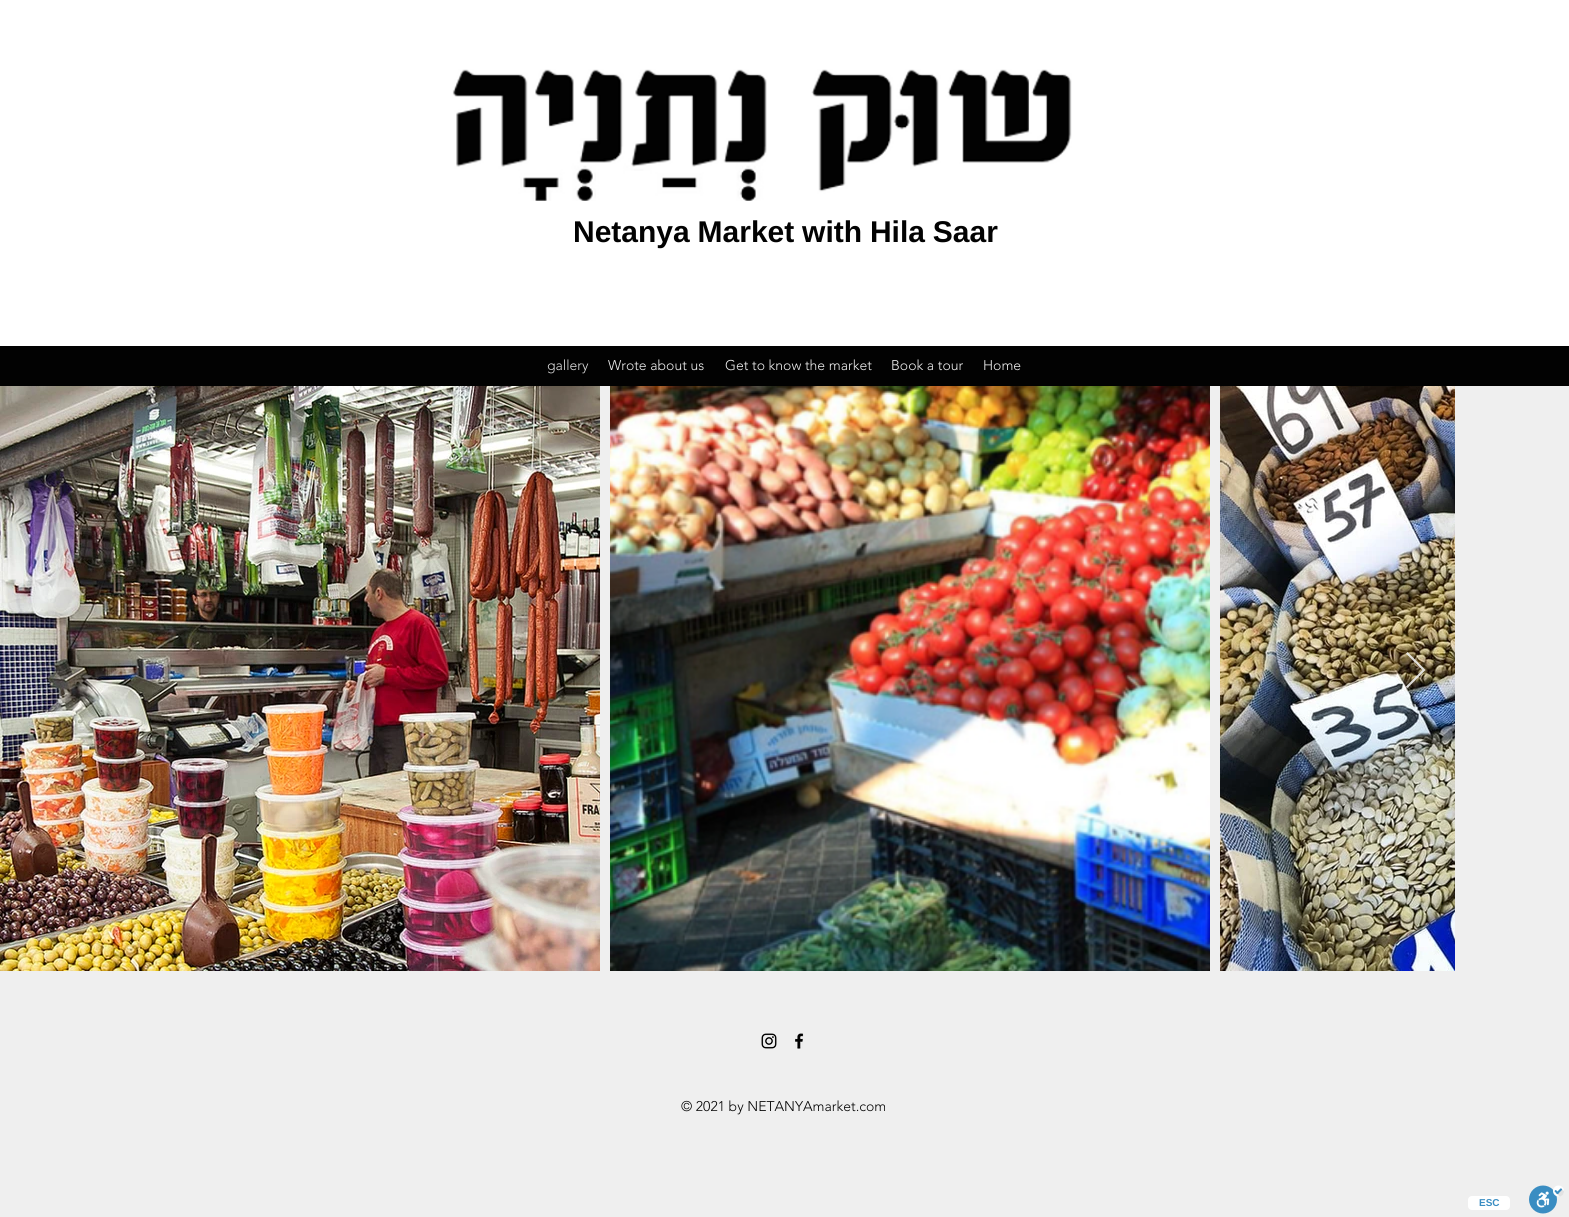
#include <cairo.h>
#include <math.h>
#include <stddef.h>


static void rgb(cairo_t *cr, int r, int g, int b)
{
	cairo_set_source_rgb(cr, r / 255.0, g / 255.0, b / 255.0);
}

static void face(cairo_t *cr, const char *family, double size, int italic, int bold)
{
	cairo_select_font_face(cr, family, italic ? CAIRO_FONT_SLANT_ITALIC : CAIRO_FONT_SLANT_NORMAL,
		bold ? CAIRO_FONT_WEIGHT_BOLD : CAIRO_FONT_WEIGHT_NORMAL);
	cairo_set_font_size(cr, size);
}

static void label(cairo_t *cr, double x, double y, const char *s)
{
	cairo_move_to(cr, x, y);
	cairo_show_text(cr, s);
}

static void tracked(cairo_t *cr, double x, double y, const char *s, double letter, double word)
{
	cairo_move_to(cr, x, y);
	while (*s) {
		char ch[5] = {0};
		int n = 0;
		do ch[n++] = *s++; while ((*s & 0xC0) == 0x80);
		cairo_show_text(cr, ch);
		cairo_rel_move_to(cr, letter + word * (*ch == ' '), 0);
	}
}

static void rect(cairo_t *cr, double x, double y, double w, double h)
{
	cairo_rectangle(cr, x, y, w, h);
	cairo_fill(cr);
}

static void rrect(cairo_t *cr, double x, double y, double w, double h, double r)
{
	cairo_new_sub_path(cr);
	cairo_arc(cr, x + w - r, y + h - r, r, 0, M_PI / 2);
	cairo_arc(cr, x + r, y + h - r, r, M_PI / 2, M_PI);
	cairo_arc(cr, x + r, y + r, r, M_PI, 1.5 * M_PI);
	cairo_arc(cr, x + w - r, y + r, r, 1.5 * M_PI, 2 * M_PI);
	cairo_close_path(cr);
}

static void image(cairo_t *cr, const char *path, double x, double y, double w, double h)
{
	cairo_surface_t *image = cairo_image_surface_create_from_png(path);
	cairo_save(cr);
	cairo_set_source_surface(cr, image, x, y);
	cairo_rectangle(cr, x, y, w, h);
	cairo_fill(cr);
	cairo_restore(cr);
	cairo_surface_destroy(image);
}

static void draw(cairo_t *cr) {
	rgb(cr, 239, 239, 239);
	cairo_paint(cr);
	rgb(cr, 255, 255, 255);
	rect(cr, 0, 0, 1569, 346);
	image(cr, "image0.png", 452, 69, 620, 132);
	face(cr, "Liberation Sans", 30, 0, 1);
	rgb(cr, 2, 2, 2);
	tracked(cr, 573, 242, "Netanya Market with Hila Saar", 0, -0.5);
	rect(cr, 0, 346, 1569, 40);
	face(cr, "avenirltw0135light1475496 Light", 14, 0, 0);
	rgb(cr, 223, 223, 223);
	label(cr, 547, 370, "gallery");
	rgb(cr, 239, 239, 239);
	label(cr, 608, 370, "Wrote about us");
	label(cr, 725, 370, "Get to know the market");
	label(cr, 891, 370, "Book a tour");
	label(cr, 983, 370, "Home");
	image(cr, "image1.png", 0, 386, 600, 585);
	image(cr, "image2.png", 610, 386, 600, 585);
	image(cr, "image3.png", 1220, 386, 235, 585);
	cairo_set_source_rgba(cr, 0.937, 0.937, 0.937, 0.9);
	cairo_new_path(cr);
	cairo_move_to(cr, 1406, 653.5);
	cairo_line_to(cr, 1407.5, 652);
	cairo_line_to(cr, 1425.5, 670);
	cairo_line_to(cr, 1407.5, 688);
	cairo_line_to(cr, 1406, 686.5);
	cairo_line_to(cr, 1422.5, 670);
	cairo_close_path(cr);
	cairo_fill(cr);
	image(cr, "image4.png", 761, 1033, 16, 16);
	image(cr, "image5.png", 795, 1033, 9, 16);
	rgb(cr, 2, 2, 2);
	label(cr, 681, 1111, "© 2021 by NETANYAmarket.com");
	rgb(cr, 255, 255, 255);
	rrect(cr, 1468, 1196, 42, 14, 4);
	cairo_fill(cr);
	face(cr, "Liberation Sans", 10, 0, 1);
	rgb(cr, 58, 141, 194);
	label(cr, 1479, 1206, "ESC");
	image(cr, "image6.png", 1529, 1185, 35, 29);
}

int main(void) {
	cairo_surface_t *surface = cairo_image_surface_create(CAIRO_FORMAT_RGB24, 1569, 1217);
	cairo_t *cr = cairo_create(surface);
	cairo_font_options_t *options = cairo_font_options_create();
	cairo_font_options_set_hint_metrics(options, CAIRO_HINT_METRICS_OFF);
	cairo_font_options_set_hint_style(options, CAIRO_HINT_STYLE_NONE);
	cairo_set_font_options(cr, options);
	cairo_set_miter_limit(cr, 4);
	draw(cr);
	cairo_surface_write_to_png(surface, "render.png");
	cairo_font_options_destroy(options);
	cairo_destroy(cr);
	cairo_surface_destroy(surface);
	return 0;
}
